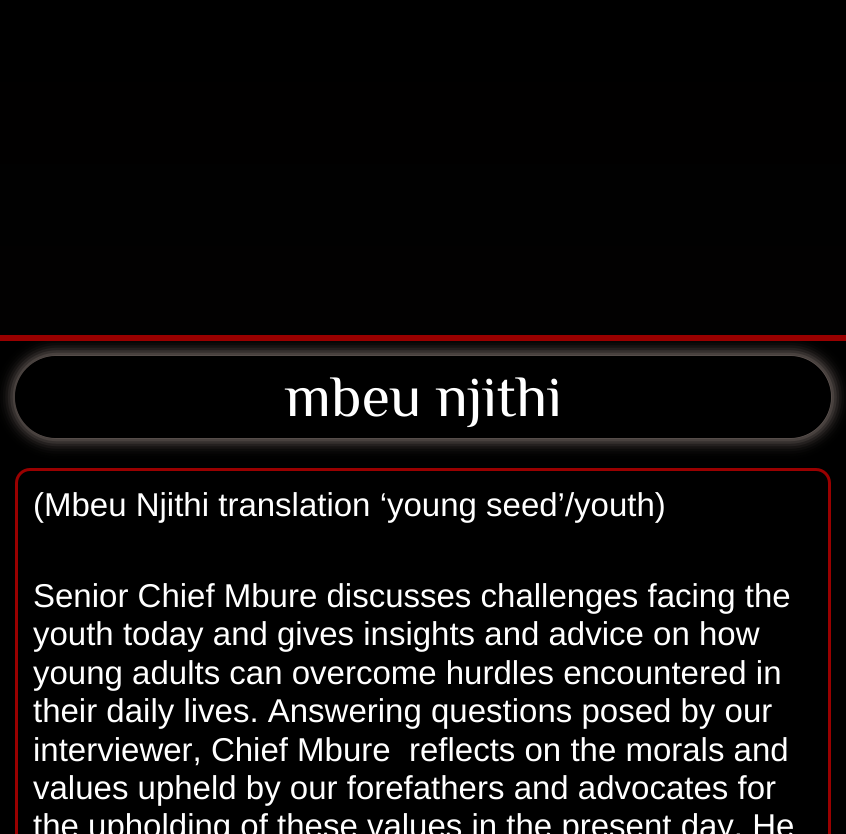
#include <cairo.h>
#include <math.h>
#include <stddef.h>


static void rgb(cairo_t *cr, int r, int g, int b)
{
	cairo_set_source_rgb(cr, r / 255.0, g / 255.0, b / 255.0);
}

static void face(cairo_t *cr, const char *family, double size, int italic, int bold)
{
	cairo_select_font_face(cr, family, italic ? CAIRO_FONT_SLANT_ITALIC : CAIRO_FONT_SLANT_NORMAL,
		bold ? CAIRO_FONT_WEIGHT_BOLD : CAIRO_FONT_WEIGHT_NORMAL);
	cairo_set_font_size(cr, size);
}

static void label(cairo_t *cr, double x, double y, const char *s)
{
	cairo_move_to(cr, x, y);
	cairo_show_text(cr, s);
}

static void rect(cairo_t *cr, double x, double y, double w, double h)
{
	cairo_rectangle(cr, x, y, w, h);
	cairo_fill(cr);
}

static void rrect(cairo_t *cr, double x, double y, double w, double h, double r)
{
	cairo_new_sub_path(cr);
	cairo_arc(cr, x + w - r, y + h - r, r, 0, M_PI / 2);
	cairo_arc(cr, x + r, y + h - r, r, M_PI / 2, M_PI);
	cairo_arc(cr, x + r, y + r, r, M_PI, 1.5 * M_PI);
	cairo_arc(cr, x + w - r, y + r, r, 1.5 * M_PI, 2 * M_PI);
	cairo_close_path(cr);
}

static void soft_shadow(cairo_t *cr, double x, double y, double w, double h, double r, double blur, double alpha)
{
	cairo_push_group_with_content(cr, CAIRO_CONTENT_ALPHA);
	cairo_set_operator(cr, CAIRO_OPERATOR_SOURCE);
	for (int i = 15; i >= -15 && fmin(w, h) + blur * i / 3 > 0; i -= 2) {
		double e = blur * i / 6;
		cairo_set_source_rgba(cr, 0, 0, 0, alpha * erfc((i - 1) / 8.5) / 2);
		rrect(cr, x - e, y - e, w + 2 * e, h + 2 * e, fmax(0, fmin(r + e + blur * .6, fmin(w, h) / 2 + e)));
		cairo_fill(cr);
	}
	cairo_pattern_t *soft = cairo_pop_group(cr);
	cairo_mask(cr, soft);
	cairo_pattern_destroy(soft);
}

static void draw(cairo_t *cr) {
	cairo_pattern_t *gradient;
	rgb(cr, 255, 255, 255);
	cairo_paint(cr);
	gradient = cairo_pattern_create_linear(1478, 753, -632, 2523);
	cairo_pattern_add_color_stop_rgba(gradient, 0.75, 0, 0, 0, 1);
	cairo_pattern_add_color_stop_rgba(gradient, 0.75, 0.6, 0, 0, 1);
	cairo_set_source(cr, gradient);
	cairo_pattern_destroy(gradient);
	rect(cr, 0, 341, 846, 493);
	cairo_save(cr);
	cairo_set_fill_rule(cr, CAIRO_FILL_RULE_EVEN_ODD);
	cairo_new_path(cr);
	cairo_move_to(cr, 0, 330);
	cairo_line_to(cr, 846, 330);
	cairo_line_to(cr, 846, 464);
	cairo_line_to(cr, 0, 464);
	cairo_close_path(cr);
	cairo_move_to(cr, 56, 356);
	cairo_line_to(cr, 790, 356);
	cairo_curve_to(cr, 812.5, 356, 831, 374.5, 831, 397);
	cairo_curve_to(cr, 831, 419.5, 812.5, 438, 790, 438);
	cairo_line_to(cr, 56, 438);
	cairo_curve_to(cr, 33.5, 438, 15, 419.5, 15, 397);
	cairo_curve_to(cr, 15, 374.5, 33.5, 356, 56, 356);
	cairo_close_path(cr);
	cairo_clip(cr);
	rgb(cr, 144, 129, 124);
	soft_shadow(cr, 14, 354, 819, 86, 43, 7.5, 1);
	cairo_restore(cr);
	rgb(cr, 153, 0, 0);
	rect(cr, 0, 335, 846, 6);
	gradient = cairo_pattern_create_linear(423, 0, 423, 335);
	cairo_pattern_add_color_stop_rgba(gradient, 0, 0, 0, 0, 1);
	cairo_pattern_add_color_stop_rgba(gradient, 1, 0.008, 0.004, 0.004, 1);
	cairo_set_source(cr, gradient);
	cairo_pattern_destroy(gradient);
	rect(cr, 0, 0, 846, 335);
	face(cr, "Philosopher", 58.5, 0, 0);
	rgb(cr, 255, 255, 255);
	label(cr, 285, 416, "mbeu njithi");
	rrect(cr, 16.5, 469.5, 813, 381, 13.5);
	rgb(cr, 153, 0, 0);
	cairo_set_line_width(cr, 3);
	cairo_stroke(cr);
	face(cr, "Liberation Sans", 33, 0, 0);
	rgb(cr, 255, 255, 255);
	label(cr, 33, 516, "(Mbeu Njithi translation ‘young seed’/youth)");
	label(cr, 33, 607, "Senior Chief Mbure discusses challenges facing the");
	label(cr, 33, 645, "youth today and gives insights and advice on how");
	label(cr, 33, 684, "young adults can overcome hurdles encountered in");
	label(cr, 33, 722, "their daily lives. Answering questions posed by our");
	label(cr, 33, 761, "interviewer, Chief Mbure  reflects on the morals and");
	label(cr, 33, 799, "values upheld by our forefathers and advocates for");
	label(cr, 33, 837, "the upholding of these values in the present day. He");
}

int main(void) {
	cairo_surface_t *surface = cairo_image_surface_create(CAIRO_FORMAT_RGB24, 846, 834);
	cairo_t *cr = cairo_create(surface);
	cairo_font_options_t *options = cairo_font_options_create();
	cairo_font_options_set_hint_metrics(options, CAIRO_HINT_METRICS_OFF);
	cairo_font_options_set_hint_style(options, CAIRO_HINT_STYLE_NONE);
	cairo_set_font_options(cr, options);
	cairo_set_miter_limit(cr, 4);
	draw(cr);
	cairo_surface_write_to_png(surface, "render.png");
	cairo_font_options_destroy(options);
	cairo_destroy(cr);
	cairo_surface_destroy(surface);
	return 0;
}
